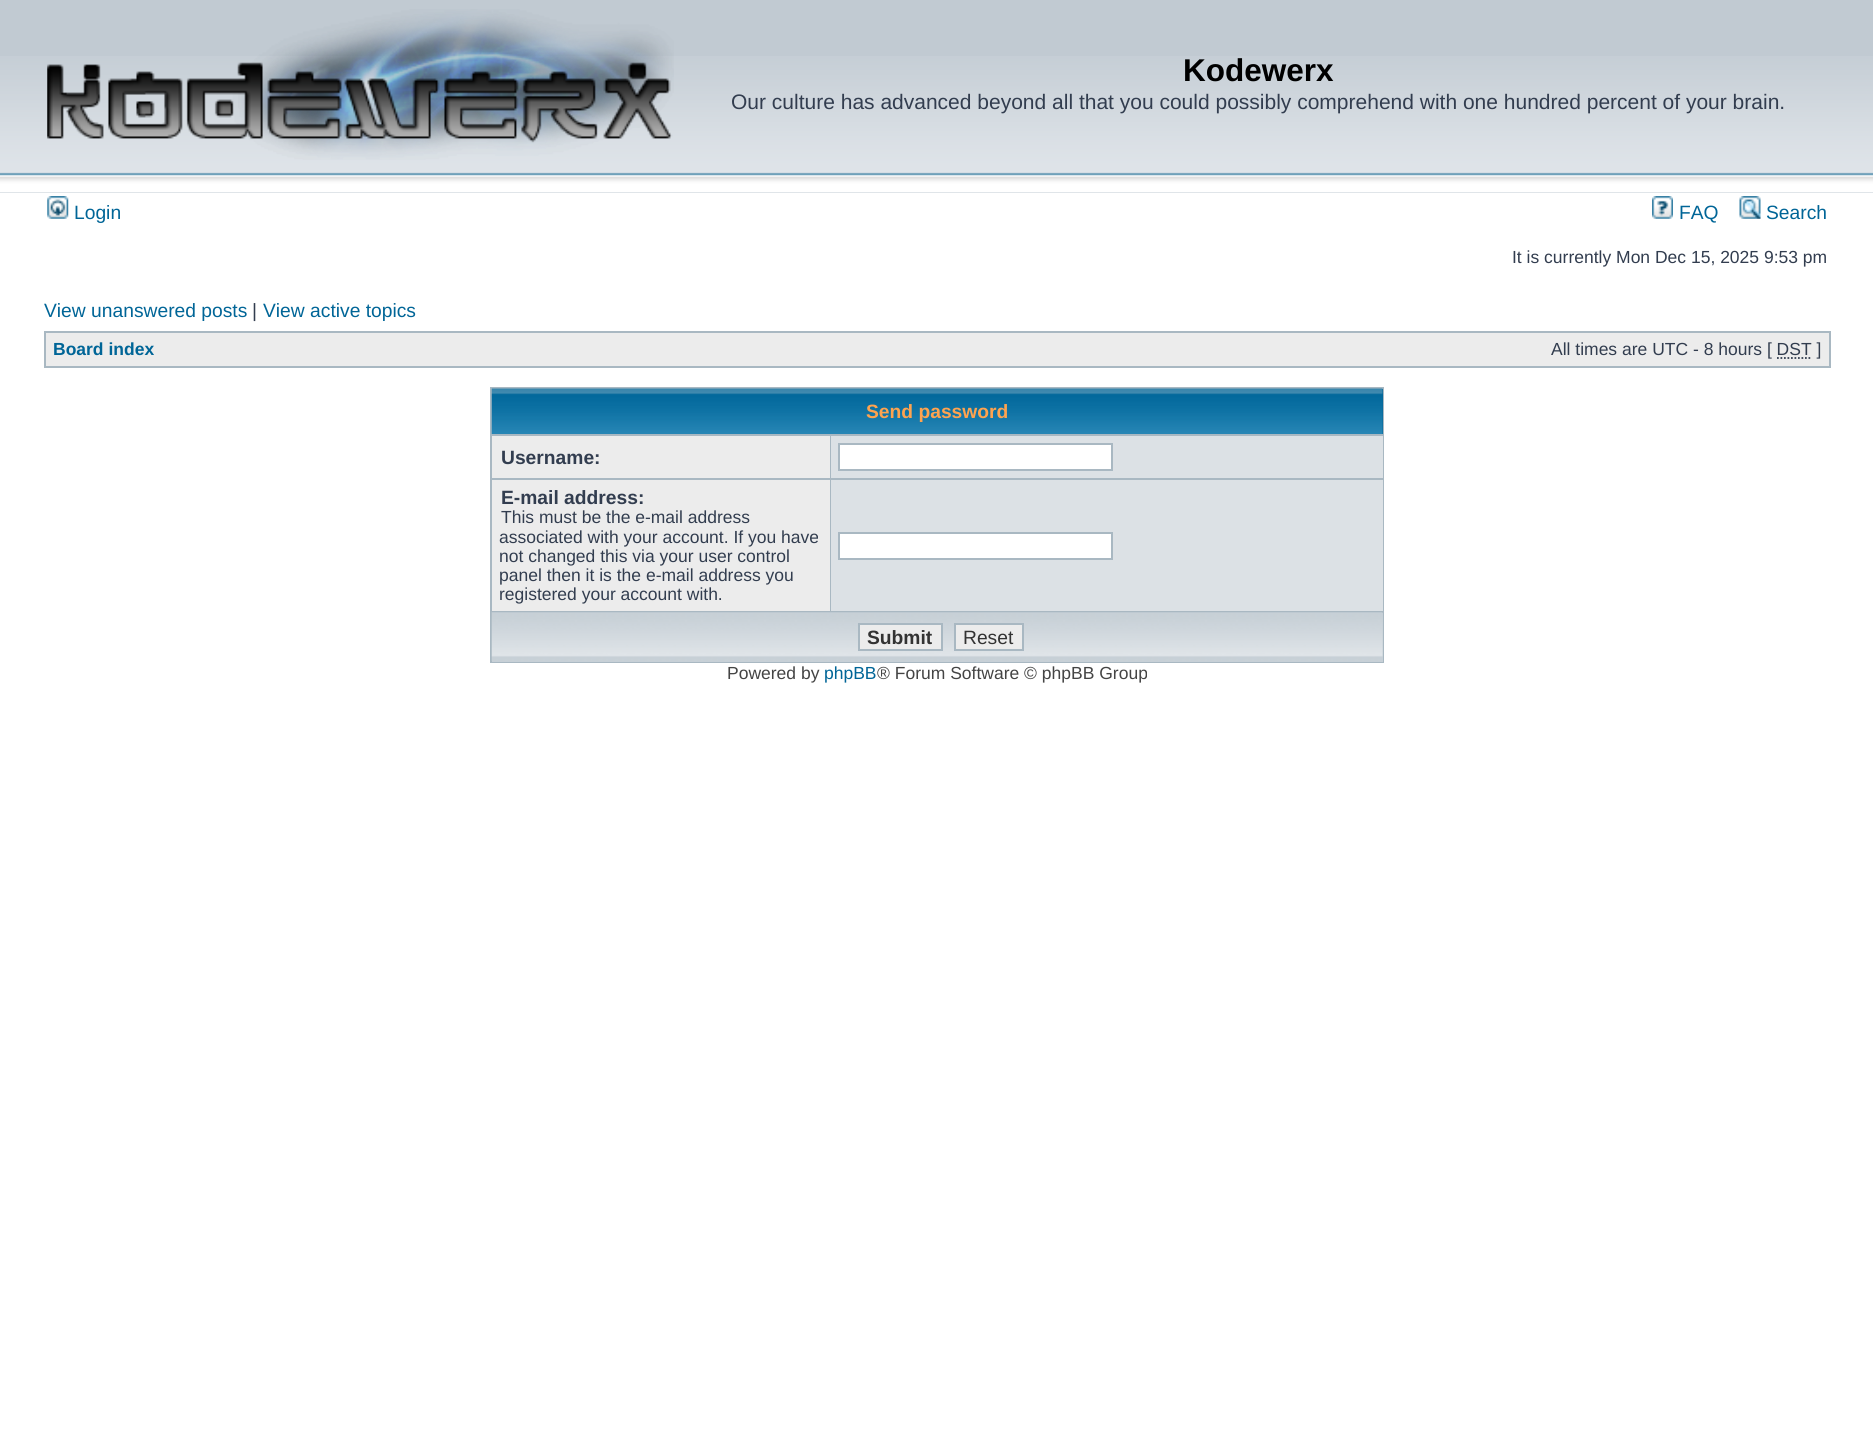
#include <cairo.h>
#include <math.h>
#include <stddef.h>


static void rgb(cairo_t *cr, int r, int g, int b)
{
	cairo_set_source_rgb(cr, r / 255.0, g / 255.0, b / 255.0);
}

static void face(cairo_t *cr, const char *family, double size, int italic, int bold)
{
	cairo_select_font_face(cr, family, italic ? CAIRO_FONT_SLANT_ITALIC : CAIRO_FONT_SLANT_NORMAL,
		bold ? CAIRO_FONT_WEIGHT_BOLD : CAIRO_FONT_WEIGHT_NORMAL);
	cairo_set_font_size(cr, size);
}

static void label(cairo_t *cr, double x, double y, const char *s)
{
	cairo_move_to(cr, x, y);
	cairo_show_text(cr, s);
}

static void rect(cairo_t *cr, double x, double y, double w, double h)
{
	cairo_rectangle(cr, x, y, w, h);
	cairo_fill(cr);
}

static void image(cairo_t *cr, const char *path, double x, double y, double w, double h)
{
	cairo_surface_t *image = cairo_image_surface_create_from_png(path);
	cairo_save(cr);
	cairo_set_source_surface(cr, image, x, y);
	cairo_rectangle(cr, x, y, w, h);
	cairo_fill(cr);
	cairo_restore(cr);
	cairo_surface_destroy(image);
}

static void draw(cairo_t *cr) {
	rgb(cr, 255, 255, 255);
	cairo_paint(cr);
	rgb(cr, 193, 202, 210);
	rect(cr, 0, 0, 1873, 193);
	image(cr, "image0.png", 0, 56, 1873, 137);
	image(cr, "image1.png", 47, 9, 627, 151);
	face(cr, "Liberation Sans", 31.5, 0, 1);
	rgb(cr, 0, 0, 0);
	label(cr, 1183, 81, "Kodewerx");
	face(cr, "Liberation Sans", 21, 0, 0);
	rgb(cr, 50, 61, 79);
	label(cr, 731, 109, "Our culture has advanced beyond all that you could possibly comprehend with one hundred percent of your brain.");
	image(cr, "image2.png", 47, 196, 22, 23);
	face(cr, "Liberation Sans", 19.25, 0, 0);
	rgb(cr, 0, 101, 151);
	label(cr, 74, 219, "Login");
	image(cr, "image3.png", 1652, 196, 21, 23);
	label(cr, 1679, 219, "FAQ");
	image(cr, "image4.png", 1739, 196, 22, 23);
	label(cr, 1766, 219, "Search");
	face(cr, "Liberation Sans", 17.5, 0, 0);
	rgb(cr, 50, 61, 79);
	label(cr, 1512, 263, "It is currently Mon Dec 15, 2025 9:53 pm");
	face(cr, "Liberation Sans", 19.25, 0, 0);
	rgb(cr, 0, 101, 151);
	label(cr, 44, 317, "View unanswered posts");
	rgb(cr, 50, 61, 79);
	label(cr, 252, 317, "|");
	rgb(cr, 0, 101, 151);
	label(cr, 263, 317, "View active topics");
	rgb(cr, 169, 184, 194);
	rect(cr, 44, 331, 1787, 37);
	rgb(cr, 236, 236, 236);
	rect(cr, 46, 333, 1783, 33);
	face(cr, "Liberation Sans", 17.5, 0, 1);
	rgb(cr, 0, 101, 151);
	label(cr, 53, 355, "Board index");
	face(cr, "Liberation Sans", 17.5, 0, 0);
	rgb(cr, 50, 61, 79);
	label(cr, 1551, 355, "All times are UTC - 8 hours [ DST ]");
	cairo_new_path(cr);
	cairo_move_to(cr, 1777, 358);
	cairo_line_to(cr, 1812, 358);
	cairo_set_line_width(cr, 1.8);
	cairo_set_dash(cr, (double[]){1.75, 1.75}, 2, 0);
	cairo_stroke(cr);
	rgb(cr, 169, 184, 194);
	rect(cr, 490, 387, 894, 276);
	rgb(cr, 0, 102, 153);
	rect(cr, 1382, 389, 1, 45);
	image(cr, "image5.png", 491, 388, 892, 46);
	face(cr, "Liberation Sans", 19.25, 0, 1);
	rgb(cr, 255, 163, 79);
	label(cr, 866, 418, "Send password");
	rgb(cr, 236, 236, 236);
	rect(cr, 492, 436, 338, 42);
	rgb(cr, 50, 61, 79);
	label(cr, 501, 464, "Username:");
	rgb(cr, 220, 225, 229);
	rect(cr, 831, 436, 552, 42);
	rgb(cr, 255, 255, 255);
	cairo_rectangle(cr, 839, 444, 273, 26);
	cairo_fill_preserve(cr);
	rgb(cr, 169, 184, 194);
	cairo_set_line_width(cr, 2);
	cairo_set_dash(cr, NULL, 0, 0);
	cairo_stroke(cr);
	rgb(cr, 236, 236, 236);
	rect(cr, 492, 480, 338, 131);
	rgb(cr, 50, 61, 79);
	label(cr, 501, 504, "E-mail address:");
	face(cr, "Liberation Sans", 17.5, 0, 0);
	label(cr, 501, 523, "This must be the e-mail address");
	label(cr, 499, 543, "associated with your account. If you have");
	label(cr, 499, 562, "not changed this via your user control");
	label(cr, 499, 581, "panel then it is the e-mail address you");
	label(cr, 499, 600, "registered your account with.");
	rgb(cr, 220, 225, 229);
	rect(cr, 831, 480, 552, 131);
	rgb(cr, 255, 255, 255);
	cairo_rectangle(cr, 839, 533, 273, 26);
	cairo_fill_preserve(cr);
	rgb(cr, 169, 184, 194);
	cairo_stroke(cr);
	rgb(cr, 199, 208, 215);
	rect(cr, 492, 613, 891, 49);
	image(cr, "image6.png", 491, 612, 892, 49);
	rgb(cr, 236, 236, 236);
	cairo_rectangle(cr, 859, 624, 83, 26);
	cairo_fill_preserve(cr);
	rgb(cr, 169, 184, 194);
	cairo_stroke(cr);
	face(cr, "Liberation Sans", 19.25, 0, 1);
	rgb(cr, 51, 51, 51);
	label(cr, 867, 644, "Submit");
	rgb(cr, 236, 236, 236);
	cairo_rectangle(cr, 955, 624, 68, 26);
	cairo_fill_preserve(cr);
	rgb(cr, 169, 184, 194);
	cairo_stroke(cr);
	face(cr, "Liberation Sans", 19.25, 0, 0);
	rgb(cr, 51, 51, 51);
	label(cr, 963, 644, "Reset");
	face(cr, "Liberation Sans", 17.5, 0, 0);
	rgb(cr, 68, 68, 68);
	label(cr, 727, 679, "Powered by");
	rgb(cr, 0, 101, 151);
	label(cr, 824, 679, "phpBB");
	rgb(cr, 68, 68, 68);
	label(cr, 877, 679, "® Forum Software © phpBB Group");
}

int main(void) {
	cairo_surface_t *surface = cairo_image_surface_create(CAIRO_FORMAT_RGB24, 1873, 1429);
	cairo_t *cr = cairo_create(surface);
	cairo_font_options_t *options = cairo_font_options_create();
	cairo_font_options_set_hint_metrics(options, CAIRO_HINT_METRICS_OFF);
	cairo_font_options_set_hint_style(options, CAIRO_HINT_STYLE_NONE);
	cairo_set_font_options(cr, options);
	cairo_set_miter_limit(cr, 4);
	draw(cr);
	cairo_surface_write_to_png(surface, "render.png");
	cairo_font_options_destroy(options);
	cairo_destroy(cr);
	cairo_surface_destroy(surface);
	return 0;
}
